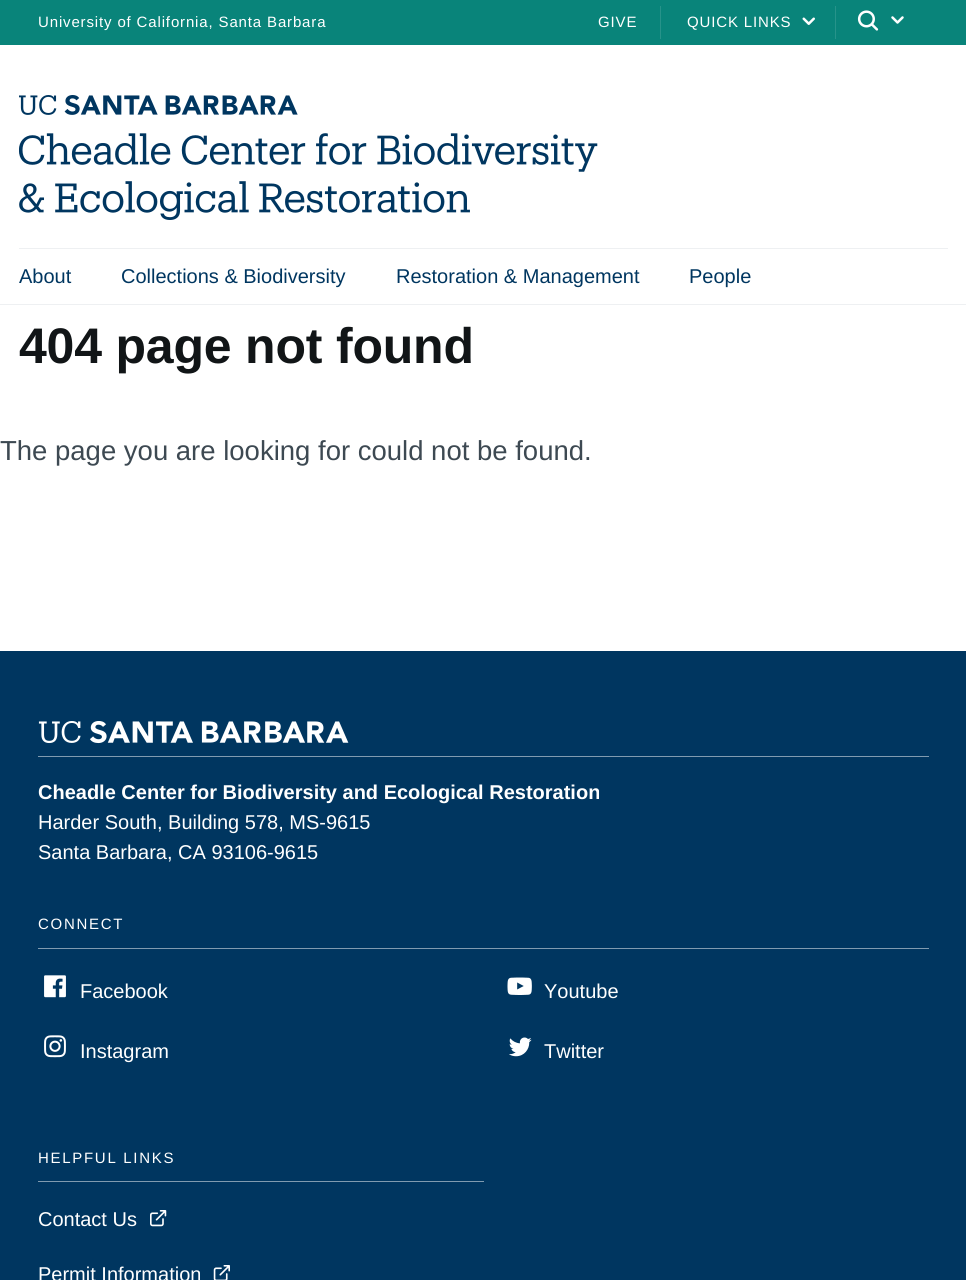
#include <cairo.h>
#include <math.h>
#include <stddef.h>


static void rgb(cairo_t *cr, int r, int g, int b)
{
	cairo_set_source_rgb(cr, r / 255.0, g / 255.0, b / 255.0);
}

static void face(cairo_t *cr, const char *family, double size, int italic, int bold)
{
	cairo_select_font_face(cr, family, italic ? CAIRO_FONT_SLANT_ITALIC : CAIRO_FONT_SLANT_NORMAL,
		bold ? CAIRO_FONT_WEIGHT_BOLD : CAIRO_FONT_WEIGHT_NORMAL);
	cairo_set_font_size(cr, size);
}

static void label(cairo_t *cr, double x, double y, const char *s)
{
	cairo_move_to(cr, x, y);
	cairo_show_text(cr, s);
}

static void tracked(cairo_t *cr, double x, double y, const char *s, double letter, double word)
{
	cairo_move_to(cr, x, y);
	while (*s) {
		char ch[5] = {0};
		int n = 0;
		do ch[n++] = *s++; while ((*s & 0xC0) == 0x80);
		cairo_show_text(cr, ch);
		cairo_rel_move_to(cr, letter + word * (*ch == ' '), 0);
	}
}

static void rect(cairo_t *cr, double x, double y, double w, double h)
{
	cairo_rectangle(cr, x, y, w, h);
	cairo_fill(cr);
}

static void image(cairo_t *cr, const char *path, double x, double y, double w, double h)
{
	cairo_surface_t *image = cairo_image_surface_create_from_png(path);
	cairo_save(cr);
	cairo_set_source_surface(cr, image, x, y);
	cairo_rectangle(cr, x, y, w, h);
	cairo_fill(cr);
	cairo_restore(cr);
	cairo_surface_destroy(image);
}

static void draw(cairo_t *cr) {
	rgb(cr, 255, 255, 255);
	cairo_paint(cr);
	rgb(cr, 238, 240, 242);
	rect(cr, 0, 304, 966, 1);
	rgb(cr, 9, 132, 122);
	rect(cr, 0, 0, 966, 45);
	face(cr, "Liberation Sans", 15, 0, 0);
	rgb(cr, 255, 255, 255);
	tracked(cr, 38, 27, "University of California, Santa Barbara", 0.85, 0);
	tracked(cr, 598, 27, "GIVE", 0.85, 0);
	rgb(cr, 39, 147, 138);
	rect(cr, 660, 6, 1, 33);
	rgb(cr, 255, 255, 255);
	tracked(cr, 687, 27, "QUICK LINKS", 0.85, 0);
	image(cr, "image0.png", 802, 17, 13, 8);
	rgb(cr, 39, 147, 138);
	rect(cr, 835, 6, 1, 33);
	image(cr, "image1.png", 857, 10, 22, 21);
	image(cr, "image2.png", 891, 16, 13, 8);
	rgb(cr, 238, 240, 242);
	rect(cr, 19, 248, 929, 1);
	image(cr, "image3.png", 19, 95, 579, 125);
	face(cr, "Liberation Sans", 20, 0, 0);
	rgb(cr, 0, 54, 96);
	label(cr, 19, 283, "About");
	label(cr, 121, 283, "Collections & Biodiversity");
	label(cr, 396, 283, "Restoration & Management");
	label(cr, 689, 283, "People");
	face(cr, "Liberation Sans", 50, 0, 1);
	rgb(cr, 17, 21, 23);
	tracked(cr, 19, 363, "404 page not found", -0.2, 0);
	face(cr, "Liberation Sans", 27.5, 0, 0);
	rgb(cr, 61, 73, 82);
	label(cr, 0, 460, "The page you are looking for could not be found.");
	rgb(cr, 0, 54, 96);
	rect(cr, 0, 651, 966, 629);
	rgb(cr, 128, 155, 176);
	rect(cr, 38, 756, 891, 1);
	image(cr, "image4.png", 38, 721, 311, 23);
	face(cr, "Liberation Sans", 20, 0, 1);
	rgb(cr, 255, 255, 255);
	label(cr, 38, 799, "Cheadle Center for Biodiversity and Ecological Restoration");
	face(cr, "Liberation Sans", 20, 0, 0);
	label(cr, 38, 829, "Harder South, Building 578, MS-9615");
	label(cr, 38, 859, "Santa Barbara, CA 93106-9615");
	rgb(cr, 128, 155, 176);
	rect(cr, 38, 948, 891, 1);
	face(cr, "Liberation Sans", 15, 0, 0);
	rgb(cr, 255, 255, 255);
	tracked(cr, 38, 929, "CONNECT", 1.7, 0);
	image(cr, "image5.png", 44, 975, 22, 23);
	face(cr, "Liberation Sans", 20, 0, 0);
	label(cr, 80, 998, "Facebook");
	image(cr, "image6.png", 507, 977, 25, 18);
	label(cr, 544, 998, "Youtube");
	image(cr, "image7.png", 44, 1035, 22, 23);
	label(cr, 80, 1058, "Instagram");
	image(cr, "image8.png", 509, 1037, 23, 20);
	label(cr, 544, 1058, "Twitter");
	rgb(cr, 128, 155, 176);
	rect(cr, 38, 1181, 446, 1);
	face(cr, "Liberation Sans", 15, 0, 0);
	rgb(cr, 255, 255, 255);
	tracked(cr, 38, 1163, "HELPFUL LINKS", 1.7, 0);
	face(cr, "Liberation Sans", 20, 0, 0);
	label(cr, 38, 1226, "Contact Us");
	image(cr, "image9.png", 150, 1210, 17, 17);
	label(cr, 38, 1281, "Permit Information");
	image(cr, "image10.png", 213, 1265, 17, 15);
}

int main(void) {
	cairo_surface_t *surface = cairo_image_surface_create(CAIRO_FORMAT_RGB24, 966, 1280);
	cairo_t *cr = cairo_create(surface);
	cairo_font_options_t *options = cairo_font_options_create();
	cairo_font_options_set_hint_metrics(options, CAIRO_HINT_METRICS_OFF);
	cairo_font_options_set_hint_style(options, CAIRO_HINT_STYLE_NONE);
	cairo_set_font_options(cr, options);
	cairo_set_miter_limit(cr, 4);
	draw(cr);
	cairo_surface_write_to_png(surface, "render.png");
	cairo_font_options_destroy(options);
	cairo_destroy(cr);
	cairo_surface_destroy(surface);
	return 0;
}
